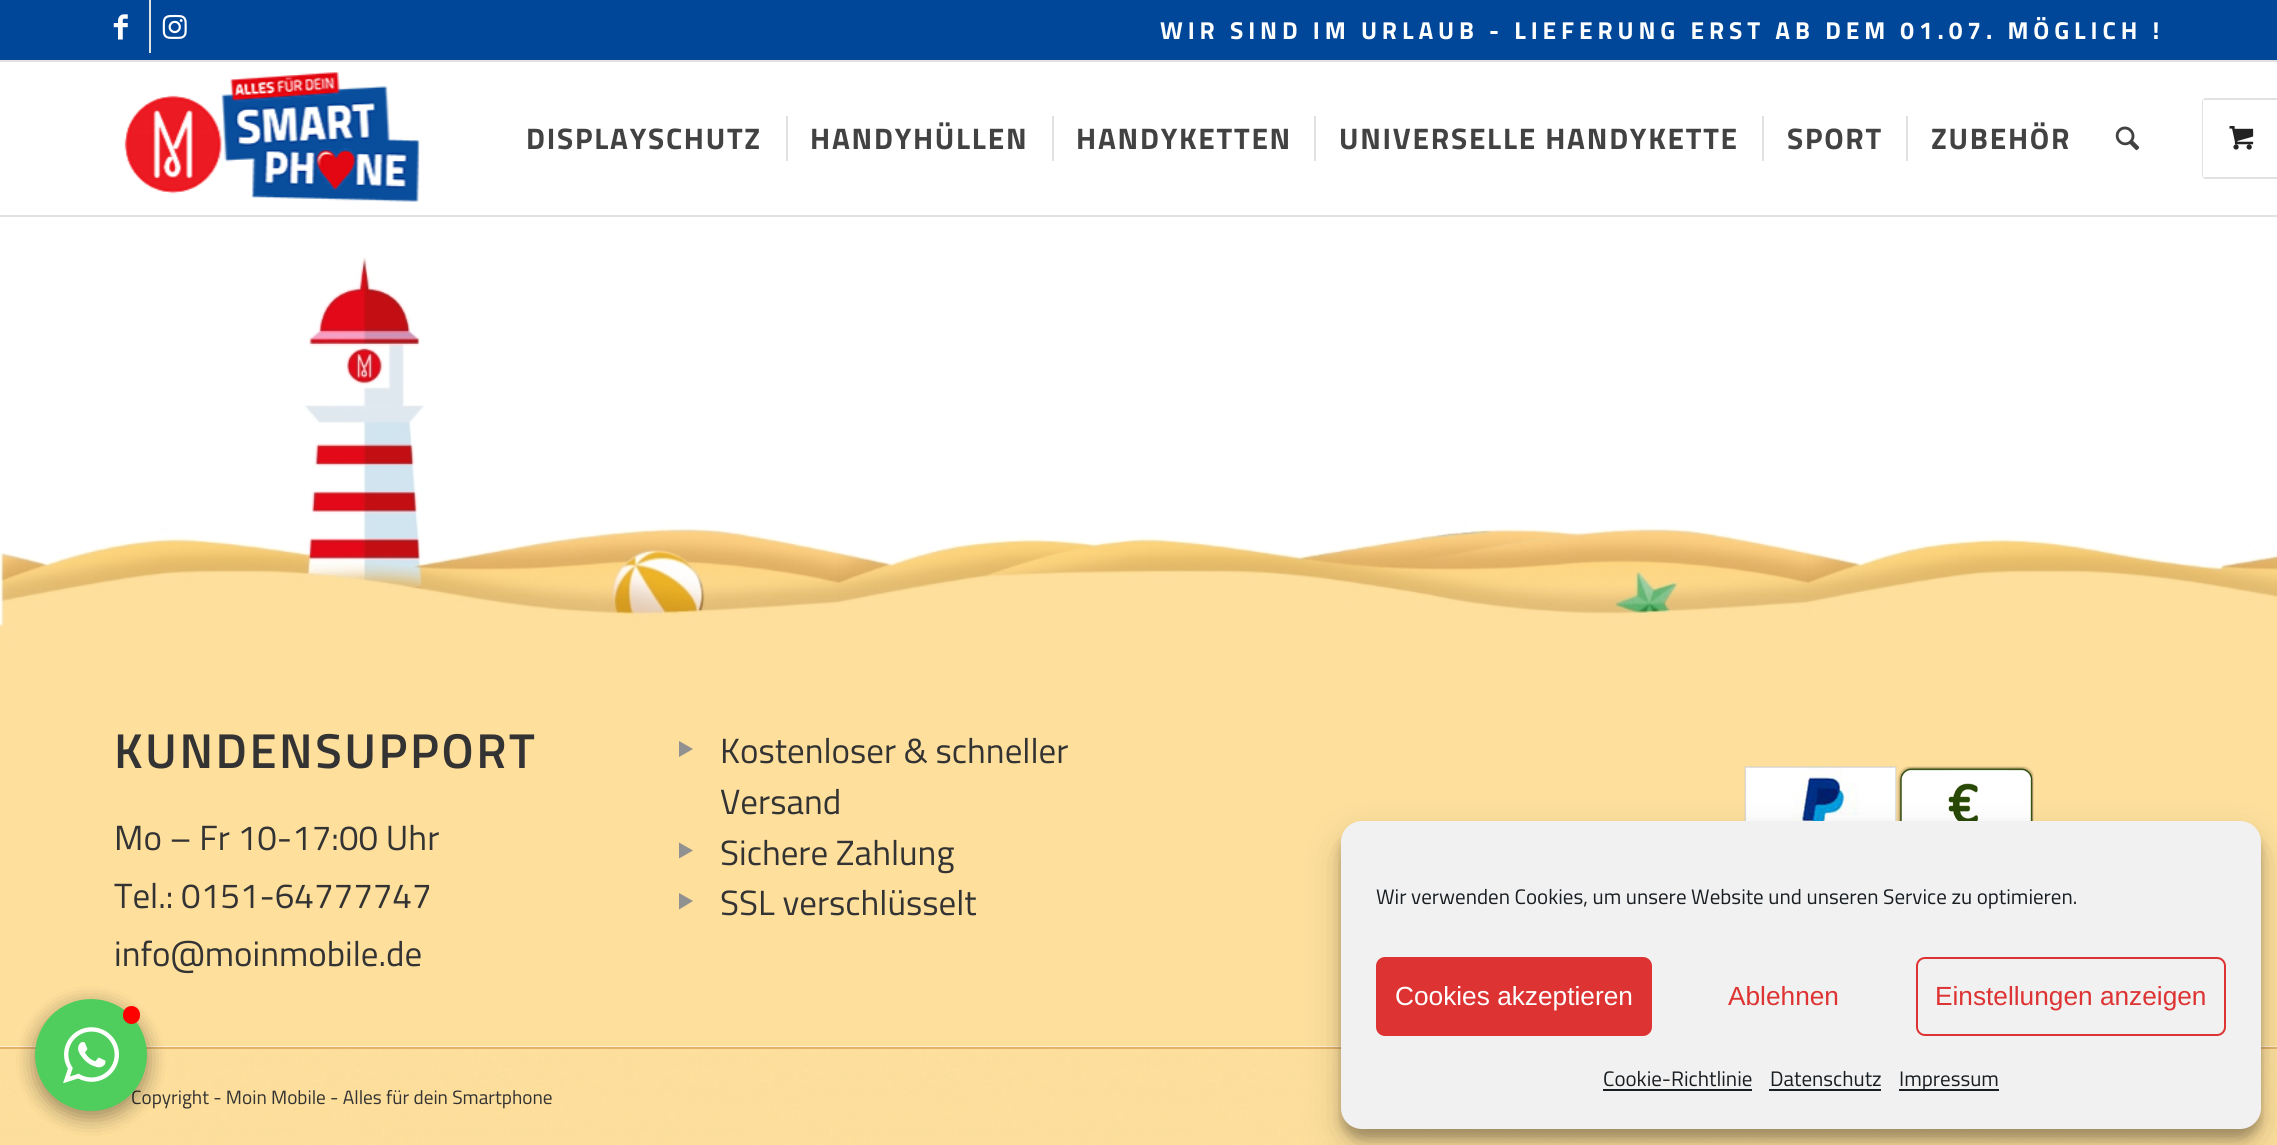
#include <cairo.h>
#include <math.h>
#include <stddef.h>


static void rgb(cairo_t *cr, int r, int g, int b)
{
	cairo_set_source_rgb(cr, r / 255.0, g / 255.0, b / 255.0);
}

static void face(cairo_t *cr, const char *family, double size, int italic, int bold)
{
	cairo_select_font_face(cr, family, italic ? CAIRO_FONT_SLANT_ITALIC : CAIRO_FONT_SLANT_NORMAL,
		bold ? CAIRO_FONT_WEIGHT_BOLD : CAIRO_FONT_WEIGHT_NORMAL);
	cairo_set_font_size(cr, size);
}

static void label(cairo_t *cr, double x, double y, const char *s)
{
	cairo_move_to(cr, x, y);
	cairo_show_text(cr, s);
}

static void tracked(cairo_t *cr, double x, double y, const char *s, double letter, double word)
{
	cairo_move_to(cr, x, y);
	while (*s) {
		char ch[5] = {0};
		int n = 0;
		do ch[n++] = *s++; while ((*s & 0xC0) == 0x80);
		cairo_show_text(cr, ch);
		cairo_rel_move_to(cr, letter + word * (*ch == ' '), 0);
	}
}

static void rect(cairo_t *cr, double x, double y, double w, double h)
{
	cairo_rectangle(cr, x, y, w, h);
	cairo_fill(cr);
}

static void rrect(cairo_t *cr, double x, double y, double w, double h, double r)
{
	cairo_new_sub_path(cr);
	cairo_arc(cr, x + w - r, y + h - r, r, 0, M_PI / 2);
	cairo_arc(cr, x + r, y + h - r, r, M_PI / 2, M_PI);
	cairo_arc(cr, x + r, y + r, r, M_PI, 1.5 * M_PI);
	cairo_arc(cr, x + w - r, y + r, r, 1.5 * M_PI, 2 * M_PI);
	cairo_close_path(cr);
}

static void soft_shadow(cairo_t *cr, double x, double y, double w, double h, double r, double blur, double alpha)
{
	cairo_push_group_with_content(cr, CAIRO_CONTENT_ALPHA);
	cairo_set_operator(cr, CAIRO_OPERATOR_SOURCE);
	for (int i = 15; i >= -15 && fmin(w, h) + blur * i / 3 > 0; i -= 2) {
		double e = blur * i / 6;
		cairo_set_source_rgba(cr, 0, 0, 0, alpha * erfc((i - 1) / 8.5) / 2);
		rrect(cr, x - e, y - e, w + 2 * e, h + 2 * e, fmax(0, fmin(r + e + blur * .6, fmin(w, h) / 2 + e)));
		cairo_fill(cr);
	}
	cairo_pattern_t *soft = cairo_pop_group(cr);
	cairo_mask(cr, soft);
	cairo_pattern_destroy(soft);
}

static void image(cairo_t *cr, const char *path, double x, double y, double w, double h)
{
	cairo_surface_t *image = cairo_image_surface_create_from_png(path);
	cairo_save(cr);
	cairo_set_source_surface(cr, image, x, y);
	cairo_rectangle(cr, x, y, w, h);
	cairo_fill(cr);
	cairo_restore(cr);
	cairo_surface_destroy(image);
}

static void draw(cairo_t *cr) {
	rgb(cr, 255, 255, 255);
	cairo_paint(cr);
	rgb(cr, 0, 71, 153);
	rect(cr, 0, 0, 2277, 60);
	rgb(cr, 225, 225, 225);
	rect(cr, 0, 60, 2277, 2);
	rect(cr, 149, 0, 2, 53);
	image(cr, "image0.png", 113, 14, 15, 26);
	image(cr, "image1.png", 162, 14, 25, 25);
	face(cr, "Titillium Web", 24.5, 0, 1);
	rgb(cr, 255, 255, 255);
	tracked(cr, 1160, 39, "WIR SIND IM URLAUB - LIEFERUNG ERST AB DEM 01.07. MÖGLICH !", 4.9, 0);
	rgb(cr, 225, 225, 225);
	rect(cr, 0, 215, 2277, 2);
	image(cr, "image2.png", 124, 72, 296, 130);
	face(cr, "Titillium Web", 29.75, 0, 1);
	rgb(cr, 66, 66, 66);
	tracked(cr, 526, 149, "DISPLAYSCHUTZ", 1.75, 0);
	tracked(cr, 810, 149, "HANDYHÜLLEN", 1.75, 0);
	rgb(cr, 225, 225, 225);
	rect(cr, 786, 116, 2, 45);
	rgb(cr, 66, 66, 66);
	tracked(cr, 1076, 149, "HANDYKETTEN", 1.75, 0);
	rgb(cr, 225, 225, 225);
	rect(cr, 1052, 116, 2, 45);
	rgb(cr, 66, 66, 66);
	tracked(cr, 1339, 149, "UNIVERSELLE HANDYKETTE", 1.75, 0);
	rgb(cr, 225, 225, 225);
	rect(cr, 1314, 116, 2, 45);
	rgb(cr, 66, 66, 66);
	tracked(cr, 1787, 149, "SPORT", 1.75, 0);
	rgb(cr, 225, 225, 225);
	rect(cr, 1762, 116, 2, 45);
	rgb(cr, 66, 66, 66);
	tracked(cr, 1931, 149, "ZUBEHÖR", 1.75, 0);
	rgb(cr, 225, 225, 225);
	rect(cr, 1906, 116, 2, 45);
	image(cr, "image3.png", 2115, 126, 25, 25);
	rrect(cr, 2203, 99, 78, 79, 3);
	cairo_stroke(cr);
	rgb(cr, 255, 255, 255);
	rect(cr, 2203, 100, 3, 77);
	image(cr, "image4.png", 2229, 126, 25, 24);
	image(cr, "image5.png", 0, 257, 2277, 790);
	face(cr, "Titillium Web SemiBold", 49, 0, 0);
	rgb(cr, 51, 51, 51);
	tracked(cr, 114, 768, "KUNDENSUPPORT", 2.5, 0);
	face(cr, "Titillium Web", 35, 0, 0);
	label(cr, 114, 850, "Mo – Fr 10-17:00 Uhr");
	label(cr, 114, 908, "Tel.: 0151-64777747");
	label(cr, 114, 966, "info@moinmobile.de");
	rgb(cr, 145, 145, 145);
	cairo_new_path(cr);
	cairo_move_to(cr, 679, 741);
	cairo_line_to(cr, 693, 749);
	cairo_line_to(cr, 679, 757);
	cairo_close_path(cr);
	cairo_fill(cr);
	rgb(cr, 51, 51, 51);
	label(cr, 720, 763, "Kostenloser & schneller");
	label(cr, 720, 814, "Versand");
	rgb(cr, 145, 145, 145);
	cairo_new_path(cr);
	cairo_move_to(cr, 679, 842.5);
	cairo_line_to(cr, 693, 850.5);
	cairo_line_to(cr, 679, 858.5);
	cairo_close_path(cr);
	cairo_fill(cr);
	rgb(cr, 51, 51, 51);
	label(cr, 720, 865, "Sichere Zahlung");
	rgb(cr, 145, 145, 145);
	cairo_new_path(cr);
	cairo_move_to(cr, 679, 893);
	cairo_line_to(cr, 693, 901);
	cairo_line_to(cr, 679, 909.5);
	cairo_close_path(cr);
	cairo_fill(cr);
	rgb(cr, 51, 51, 51);
	label(cr, 720, 915, "SSL verschlüsselt");
	image(cr, "image6.png", 1744, 766, 290, 55);
	image(cr, "image7.png", 0, 1049, 2277, 96);
	rgb(cr, 228, 179, 106);
	rect(cr, 0, 1047, 2277, 2);
	face(cr, "Titillium Web", 19.25, 0, 0);
	rgb(cr, 51, 51, 51);
	label(cr, 131, 1104, "Copyright - Moin Mobile - Alles für dein Smartphone");
	rgb(cr, 0, 0, 0);
	soft_shadow(cr, 35, 1005, 112, 112, 56, 10.5, 0.15);
	soft_shadow(cr, 35, 1005, 112, 112, 56, 10.5, 0.15);
	soft_shadow(cr, 35, 1005, 112, 112, 56, 10.5, 0.15);
	rgb(cr, 79, 206, 93);
	cairo_arc(cr, 91, 1055, 56, 0, 2 * M_PI);
	cairo_fill(cr);
	rgb(cr, 255, 0, 0);
	rrect(cr, 123, 1006, 17, 18, 8.5);
	cairo_fill(cr);
	image(cr, "image8.png", 63, 1027, 56, 56);
	rgb(cr, 0, 0, 0);
	soft_shadow(cr, 1341, 831, 920, 308, 21, 5, 0.23);
	soft_shadow(cr, 1341, 838, 920, 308, 21, 17.5, 0.19);
	rgb(cr, 241, 241, 241);
	rrect(cr, 1341, 821, 920, 308, 21);
	cairo_fill(cr);
	face(cr, "Titillium Web", 21, 0, 0);
	rgb(cr, 25, 30, 35);
	label(cr, 1376, 904, "Wir verwenden Cookies, um unsere Website und unseren Service zu optimieren.");
	rgb(cr, 221, 51, 51);
	rrect(cr, 1377, 958, 274, 77, 8);
	cairo_fill_preserve(cr);
	cairo_stroke(cr);
	face(cr, "Liberation Sans", 26.25, 0, 0);
	rgb(cr, 255, 255, 255);
	label(cr, 1395, 1005, "Cookies akzeptieren");
	rgb(cr, 221, 51, 51);
	label(cr, 1728, 1005, "Ablehnen");
	rrect(cr, 1917, 958, 308, 77, 8);
	cairo_stroke(cr);
	label(cr, 1935, 1005, "Einstellungen anzeigen");
	face(cr, "Titillium Web", 21, 0, 0);
	rgb(cr, 25, 30, 35);
	label(cr, 1603, 1086, "Cookie-Richtlinie");
	rect(cr, 1603, 1089, 149, 2);
	label(cr, 1770, 1086, "Datenschutz");
	rect(cr, 1769, 1089, 112, 2);
	rect(cr, 1899, 1089, 100, 2);
	label(cr, 1899, 1086, "Impressum");
}

int main(void) {
	cairo_surface_t *surface = cairo_image_surface_create(CAIRO_FORMAT_RGB24, 2277, 1145);
	cairo_t *cr = cairo_create(surface);
	cairo_font_options_t *options = cairo_font_options_create();
	cairo_font_options_set_hint_metrics(options, CAIRO_HINT_METRICS_OFF);
	cairo_font_options_set_hint_style(options, CAIRO_HINT_STYLE_NONE);
	cairo_set_font_options(cr, options);
	cairo_set_miter_limit(cr, 4);
	draw(cr);
	cairo_surface_write_to_png(surface, "render.png");
	cairo_font_options_destroy(options);
	cairo_destroy(cr);
	cairo_surface_destroy(surface);
	return 0;
}
